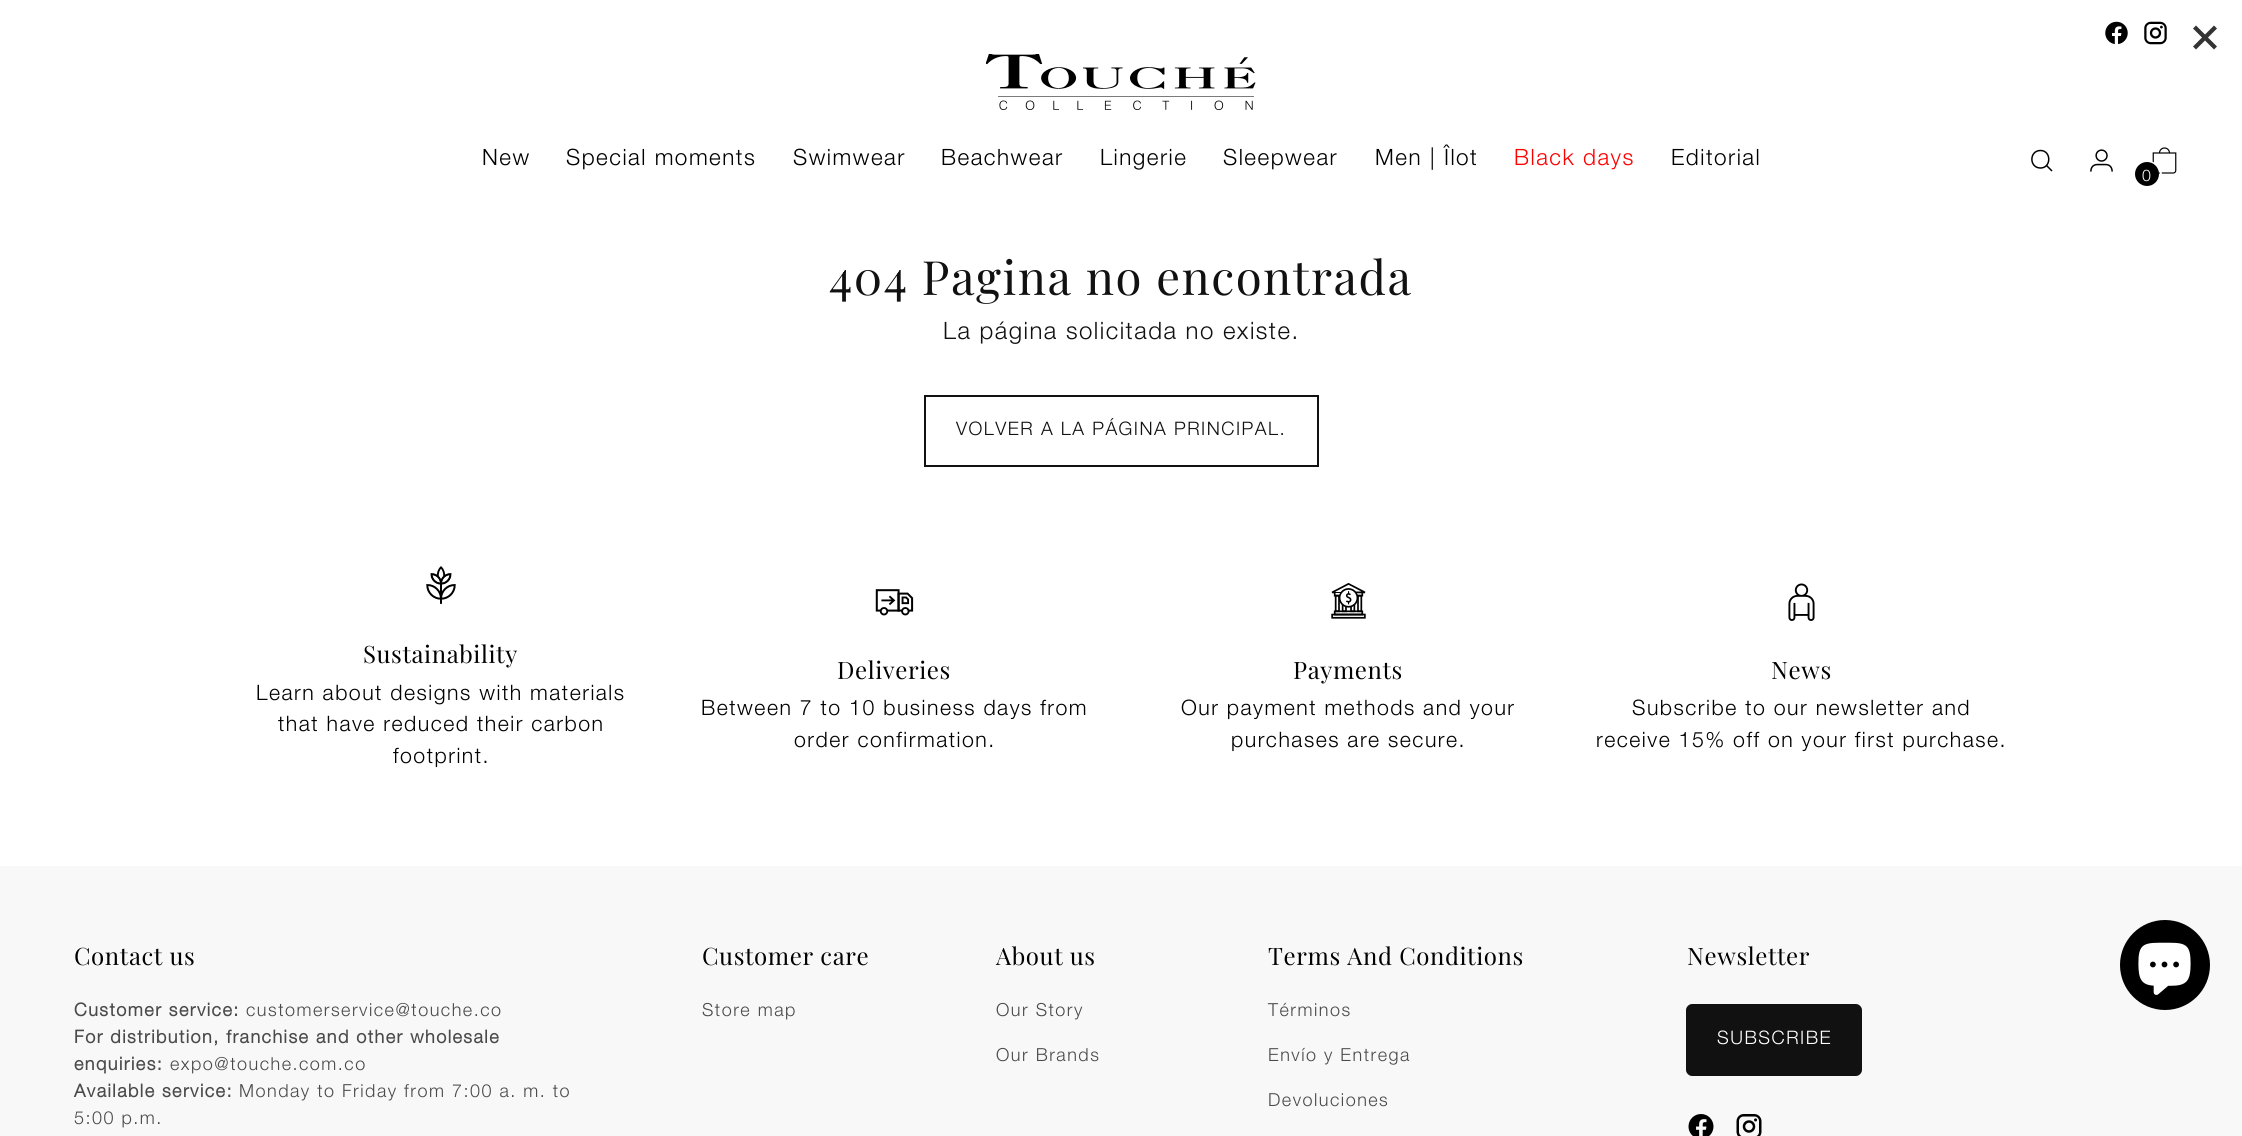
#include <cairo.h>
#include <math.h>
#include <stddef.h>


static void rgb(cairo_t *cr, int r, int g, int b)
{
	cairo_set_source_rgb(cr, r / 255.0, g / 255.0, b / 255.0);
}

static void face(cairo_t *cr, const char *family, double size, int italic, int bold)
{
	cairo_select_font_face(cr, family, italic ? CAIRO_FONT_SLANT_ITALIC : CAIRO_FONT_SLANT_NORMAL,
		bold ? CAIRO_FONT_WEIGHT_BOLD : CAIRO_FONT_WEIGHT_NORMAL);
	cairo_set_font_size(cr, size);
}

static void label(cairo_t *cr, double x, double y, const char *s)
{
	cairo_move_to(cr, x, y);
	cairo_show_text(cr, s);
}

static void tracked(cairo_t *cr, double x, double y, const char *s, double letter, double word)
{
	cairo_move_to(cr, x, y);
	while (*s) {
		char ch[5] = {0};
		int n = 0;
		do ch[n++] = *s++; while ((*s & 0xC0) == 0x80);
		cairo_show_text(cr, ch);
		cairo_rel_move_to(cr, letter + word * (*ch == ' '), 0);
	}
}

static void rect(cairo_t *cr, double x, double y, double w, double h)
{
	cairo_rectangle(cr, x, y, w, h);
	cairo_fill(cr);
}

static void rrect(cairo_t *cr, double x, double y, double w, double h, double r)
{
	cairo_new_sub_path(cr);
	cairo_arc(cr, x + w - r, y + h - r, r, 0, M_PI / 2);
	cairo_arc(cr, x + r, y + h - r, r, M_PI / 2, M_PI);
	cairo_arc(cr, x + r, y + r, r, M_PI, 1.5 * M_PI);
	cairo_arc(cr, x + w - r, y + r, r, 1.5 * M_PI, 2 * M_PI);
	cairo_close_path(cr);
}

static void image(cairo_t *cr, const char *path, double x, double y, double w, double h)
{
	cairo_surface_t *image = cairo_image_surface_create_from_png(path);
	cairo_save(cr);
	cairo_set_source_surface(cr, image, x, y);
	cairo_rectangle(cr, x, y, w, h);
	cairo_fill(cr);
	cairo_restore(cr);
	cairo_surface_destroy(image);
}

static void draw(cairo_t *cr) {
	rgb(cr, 255, 255, 255);
	cairo_paint(cr);
	rgb(cr, 51, 51, 51);
	cairo_set_fill_rule(cr, CAIRO_FILL_RULE_EVEN_ODD);
	cairo_new_path(cr);
	cairo_move_to(cr, 2205, 40.5);
	cairo_line_to(cr, 2196, 49.5);
	cairo_line_to(cr, 2193, 46.5);
	cairo_line_to(cr, 2202, 37.5);
	cairo_line_to(cr, 2193, 28.5);
	cairo_line_to(cr, 2196, 25.5);
	cairo_line_to(cr, 2205, 34.5);
	cairo_line_to(cr, 2214, 25.5);
	cairo_line_to(cr, 2217, 28.5);
	cairo_line_to(cr, 2208, 37.5);
	cairo_line_to(cr, 2217, 46.5);
	cairo_line_to(cr, 2214, 49.5);
	cairo_close_path(cr);
	cairo_fill(cr);
	image(cr, "image0.png", 2105, 21, 23, 24);
	image(cr, "image1.png", 2144, 21, 23, 24);
	image(cr, "image2.png", 986, 54, 270, 56);
	face(cr, "Helvetica Neue Light", 22.5, 0, 0);
	rgb(cr, 0, 0, 0);
	tracked(cr, 482, 165, "New", 1.5, 0);
	tracked(cr, 566, 165, "Special moments", 1.5, 0);
	tracked(cr, 793, 165, "Swimwear", 1.5, 0);
	tracked(cr, 941, 165, "Beachwear", 1.5, 0);
	tracked(cr, 1100, 165, "Lingerie", 1.5, 0);
	tracked(cr, 1223, 165, "Sleepwear", 1.5, 0);
	tracked(cr, 1375, 165, "Men | Îlot", 1.5, 0);
	rgb(cr, 255, 0, 0);
	tracked(cr, 1514, 165, "Black days", 1.5, 0);
	rgb(cr, 0, 0, 0);
	tracked(cr, 1671, 165, "Editorial", 1.5, 0);
	cairo_new_path(cr);
	cairo_move_to(cr, 2040.5, 168);
	cairo_curve_to(cr, 2051.5, 168, 2051.5, 150.5, 2040.5, 150.5);
	cairo_curve_to(cr, 2029, 150.5, 2029, 168, 2040.5, 168);
	cairo_close_path(cr);
	cairo_set_line_width(cr, 1.5);
	cairo_set_line_cap(cr, CAIRO_LINE_CAP_ROUND);
	cairo_stroke(cr);
	cairo_new_path(cr);
	cairo_move_to(cr, 2046.5, 165.5);
	cairo_line_to(cr, 2052, 171);
	cairo_set_line_cap(cr, CAIRO_LINE_CAP_BUTT);
	cairo_stroke(cr);
	image(cr, "image3.png", 2090, 149, 23, 23);
	image(cr, "image4.png", 2152, 147, 25, 27);
	rrect(cr, 2134, 162, 27, 26, 13);
	rgb(cr, 255, 255, 255);
	cairo_set_line_width(cr, 2);
	cairo_stroke(cr);
	rgb(cr, 0, 0, 0);
	cairo_arc(cr, 2147, 174, 12, 0, 2 * M_PI);
	cairo_fill(cr);
	face(cr, "Helvetica Neue Light", 16, 0, 0);
	rgb(cr, 255, 255, 255);
	label(cr, 2142, 181, "0");
	face(cr, "Playfair Display", 47.25, 0, 0);
	rgb(cr, 17, 17, 17);
	tracked(cr, 829, 295, "404 Pagina no encontrada", 1.5, 0);
	face(cr, "Helvetica Neue Light", 24, 0, 0);
	tracked(cr, 943, 339, "La página solicitada no existe.", 1.5, 0);
	cairo_rectangle(cr, 925, 396, 393, 70);
	cairo_stroke(cr);
	face(cr, "Helvetica Neue Light", 18.6, 0, 0);
	tracked(cr, 956, 435, "VOLVER A LA PÁGINA PRINCIPAL.", 1.5, 0);
	image(cr, "image5.png", 426, 566, 30, 38);
	face(cr, "Playfair Display", 24, 0, 0);
	rgb(cr, 0, 0, 0);
	tracked(cr, 363, 663, "Sustainability", 0.6, 0);
	face(cr, "Helvetica Neue Light", 21.3, 0, 0);
	tracked(cr, 256, 700, "Learn about designs with materials", 1.5, 0);
	tracked(cr, 278, 731, "that have reduced their carbon", 1.5, 0);
	tracked(cr, 393, 763, "footprint.", 1.5, 0);
	image(cr, "image6.png", 875, 589, 39, 27);
	face(cr, "Playfair Display", 24, 0, 0);
	tracked(cr, 837, 679, "Deliveries", 0.6, 0);
	face(cr, "Helvetica Neue Light", 21.3, 0, 0);
	tracked(cr, 701, 715, "Between 7 to 10 business days from", 1.5, 0);
	tracked(cr, 794, 747, "order confirmation.", 1.5, 0);
	image(cr, "image7.png", 1331, 583, 35, 36);
	face(cr, "Playfair Display", 24, 0, 0);
	tracked(cr, 1293, 679, "Payments", 0.6, 0);
	face(cr, "Helvetica Neue Light", 21.3, 0, 0);
	tracked(cr, 1181, 715, "Our payment methods and your", 1.5, 0);
	tracked(cr, 1231, 747, "purchases are secure.", 1.5, 0);
	image(cr, "image8.png", 1788, 583, 27, 38);
	face(cr, "Playfair Display", 24, 0, 0);
	tracked(cr, 1771, 679, "News", 0.6, 0);
	face(cr, "Helvetica Neue Light", 21.3, 0, 0);
	tracked(cr, 1632, 715, "Subscribe to our newsletter and", 1.5, 0);
	tracked(cr, 1596, 747, "receive 15% off on your first purchase.", 1.5, 0);
	rgb(cr, 248, 248, 248);
	rect(cr, 0, 866, 2242, 270);
	face(cr, "Playfair Display", 24, 0, 0);
	rgb(cr, 0, 0, 0);
	tracked(cr, 74, 965, "Contact us", 0.6, 0);
	face(cr, "Helvetica Neue", 18, 0, 1);
	rgb(cr, 74, 74, 74);
	tracked(cr, 74, 1016, "Customer service:", 1.5, 0);
	face(cr, "Helvetica Neue Light", 18, 0, 0);
	tracked(cr, 246, 1016, "customerservice@touche.co", 1.5, 0);
	face(cr, "Helvetica Neue", 18, 0, 1);
	tracked(cr, 74, 1043, "For distribution, franchise and other wholesale", 1.5, 0);
	tracked(cr, 74, 1070, "enquiries:", 1.5, 0);
	face(cr, "Helvetica Neue Light", 18, 0, 0);
	tracked(cr, 170, 1070, "expo@touche.com.co", 1.5, 0);
	face(cr, "Helvetica Neue", 18, 0, 1);
	tracked(cr, 74, 1097, "Available service:", 1.5, 0);
	face(cr, "Helvetica Neue Light", 18, 0, 0);
	tracked(cr, 239, 1097, "Monday to Friday from 7:00 a. m. to", 1.5, 0);
	tracked(cr, 74, 1124, "5:00 p.m.", 1.5, 0);
	face(cr, "Playfair Display", 24, 0, 0);
	rgb(cr, 0, 0, 0);
	tracked(cr, 702, 965, "Customer care", 0.6, 0);
	face(cr, "Helvetica Neue Light", 18, 0, 0);
	rgb(cr, 74, 74, 74);
	tracked(cr, 702, 1016, "Store map", 1.5, 0);
	face(cr, "Playfair Display", 24, 0, 0);
	rgb(cr, 0, 0, 0);
	tracked(cr, 996, 965, "About us", 0.6, 0);
	face(cr, "Helvetica Neue Light", 18, 0, 0);
	rgb(cr, 74, 74, 74);
	tracked(cr, 996, 1016, "Our Story", 1.5, 0);
	tracked(cr, 996, 1061, "Our Brands", 1.5, 0);
	face(cr, "Playfair Display", 24, 0, 0);
	rgb(cr, 0, 0, 0);
	tracked(cr, 1268, 965, "Terms And Conditions", 0.6, 0);
	face(cr, "Helvetica Neue Light", 18, 0, 0);
	rgb(cr, 74, 74, 74);
	tracked(cr, 1268, 1016, "Términos", 1.5, 0);
	tracked(cr, 1268, 1061, "Envío y Entrega", 1.5, 0);
	tracked(cr, 1268, 1106, "Devoluciones", 1.5, 0);
	face(cr, "Playfair Display", 24, 0, 0);
	rgb(cr, 0, 0, 0);
	tracked(cr, 1687, 965, "Newsletter", 0.6, 0);
	rgb(cr, 17, 17, 17);
	cairo_set_fill_rule(cr, CAIRO_FILL_RULE_WINDING);
	cairo_new_path(cr);
	cairo_move_to(cr, 1692, 1004);
	cairo_curve_to(cr, 1689, 1004, 1686, 1007, 1686, 1010);
	cairo_line_to(cr, 1686, 1070);
	cairo_curve_to(cr, 1686, 1073, 1689, 1076, 1692, 1076);
	cairo_line_to(cr, 1856, 1076);
	cairo_curve_to(cr, 1859, 1076, 1862, 1073, 1862, 1070);
	cairo_line_to(cr, 1862, 1010);
	cairo_curve_to(cr, 1862, 1007, 1859, 1004, 1856, 1004);
	cairo_close_path(cr);
	cairo_fill(cr);
	face(cr, "Helvetica Neue Light", 18.6, 0, 0);
	rgb(cr, 255, 255, 255);
	tracked(cr, 1717, 1044, "SUBSCRIBE", 1.5, 0);
	image(cr, "image9.png", 1688, 1114, 26, 22);
	image(cr, "image10.png", 1736, 1114, 26, 22);
	rgb(cr, 0, 0, 0);
	cairo_arc(cr, 2165, 965, 45, 0, 2 * M_PI);
	cairo_fill(cr);
	image(cr, "image11.png", 2138, 942, 53, 53);
}

int main(void) {
	cairo_surface_t *surface = cairo_image_surface_create(CAIRO_FORMAT_RGB24, 2242, 1136);
	cairo_t *cr = cairo_create(surface);
	cairo_font_options_t *options = cairo_font_options_create();
	cairo_font_options_set_hint_metrics(options, CAIRO_HINT_METRICS_OFF);
	cairo_font_options_set_hint_style(options, CAIRO_HINT_STYLE_NONE);
	cairo_set_font_options(cr, options);
	cairo_set_miter_limit(cr, 4);
	draw(cr);
	cairo_surface_write_to_png(surface, "render.png");
	cairo_font_options_destroy(options);
	cairo_destroy(cr);
	cairo_surface_destroy(surface);
	return 0;
}
